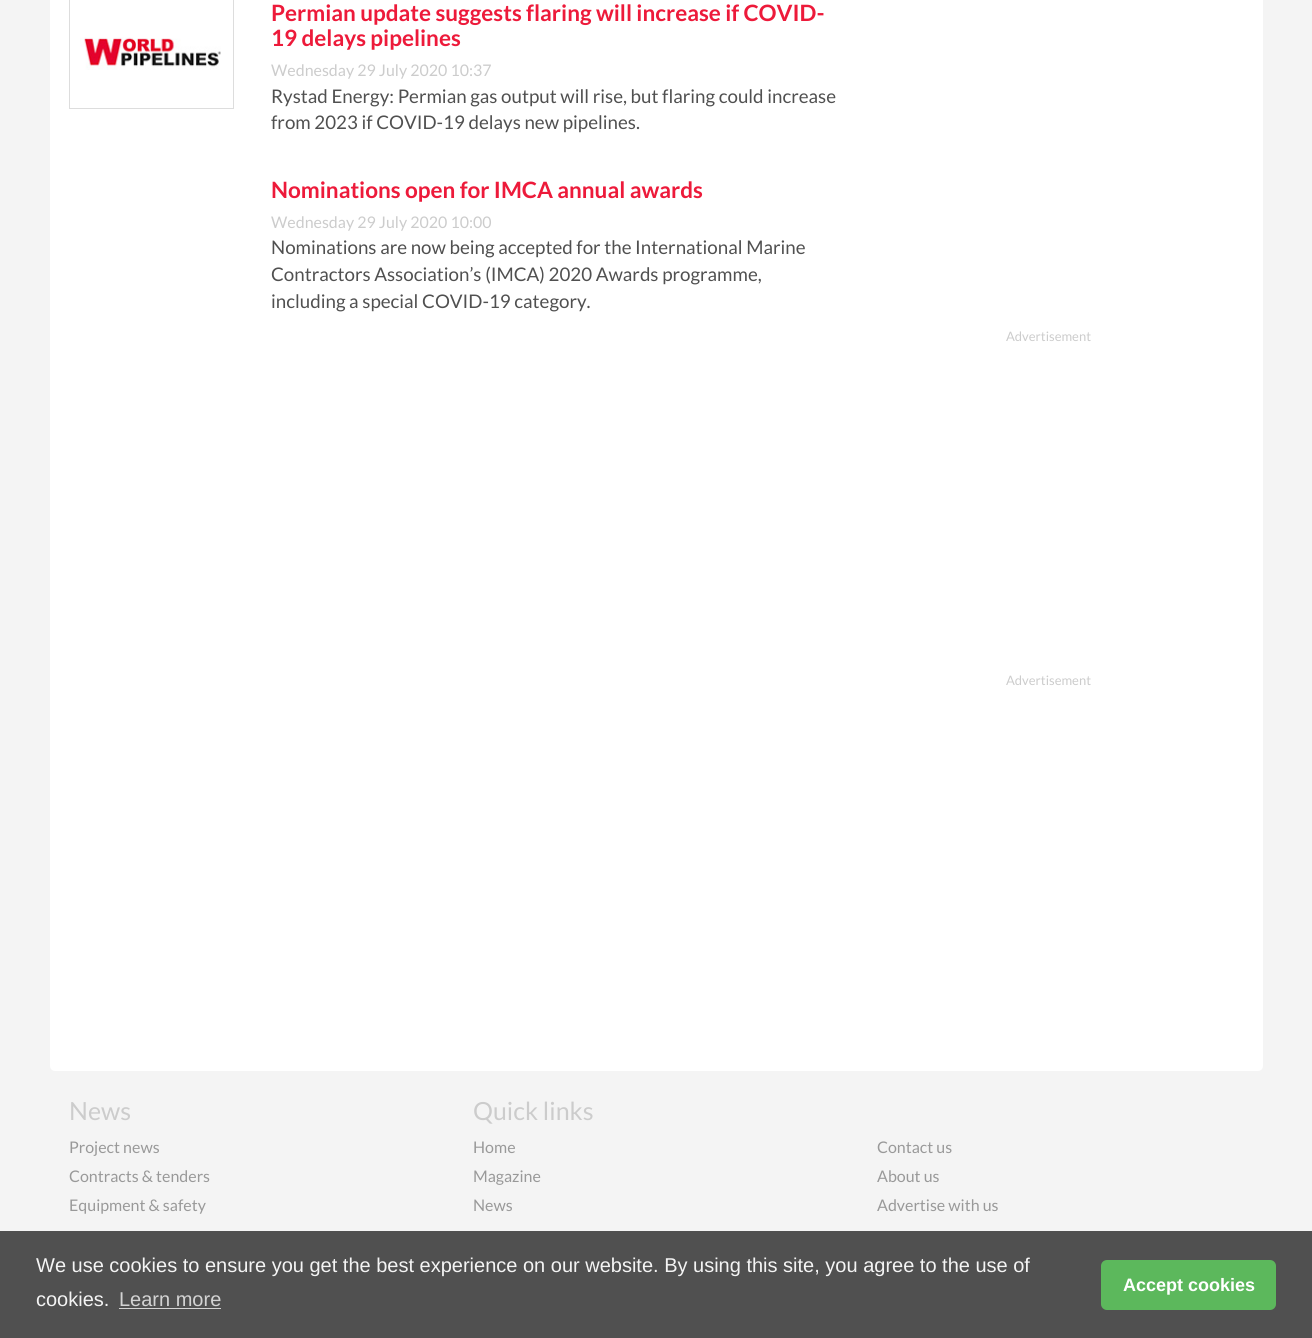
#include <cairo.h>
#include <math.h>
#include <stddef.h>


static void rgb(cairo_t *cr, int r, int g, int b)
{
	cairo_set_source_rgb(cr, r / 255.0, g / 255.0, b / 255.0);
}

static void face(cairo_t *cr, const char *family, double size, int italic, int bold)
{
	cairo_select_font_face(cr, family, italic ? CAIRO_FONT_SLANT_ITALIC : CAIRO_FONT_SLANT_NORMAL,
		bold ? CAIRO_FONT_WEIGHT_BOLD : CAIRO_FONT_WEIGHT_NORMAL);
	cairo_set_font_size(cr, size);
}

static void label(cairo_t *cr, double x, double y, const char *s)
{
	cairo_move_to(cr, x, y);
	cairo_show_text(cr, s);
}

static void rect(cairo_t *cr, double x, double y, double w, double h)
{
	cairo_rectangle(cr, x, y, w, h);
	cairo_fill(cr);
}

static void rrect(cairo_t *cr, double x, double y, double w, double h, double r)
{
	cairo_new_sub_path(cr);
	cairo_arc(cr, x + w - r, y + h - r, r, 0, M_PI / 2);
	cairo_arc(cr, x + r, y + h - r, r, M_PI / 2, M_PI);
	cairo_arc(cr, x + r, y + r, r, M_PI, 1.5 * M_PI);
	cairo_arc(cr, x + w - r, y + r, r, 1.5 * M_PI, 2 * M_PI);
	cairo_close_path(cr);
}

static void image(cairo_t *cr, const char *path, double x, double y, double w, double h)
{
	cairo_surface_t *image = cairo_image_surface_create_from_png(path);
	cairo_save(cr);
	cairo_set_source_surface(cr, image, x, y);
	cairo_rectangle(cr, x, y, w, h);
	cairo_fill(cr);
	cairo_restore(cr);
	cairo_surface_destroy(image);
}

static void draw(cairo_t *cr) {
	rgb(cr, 244, 244, 244);
	cairo_paint(cr);
	rgb(cr, 255, 255, 255);
	rrect(cr, 50, -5, 1213, 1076, 5);
	cairo_fill(cr);
	cairo_rectangle(cr, 69.5, -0.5, 164, 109);
	rgb(cr, 221, 221, 221);
	cairo_set_line_width(cr, 1);
	cairo_stroke(cr);
	image(cr, "image0.png", 80, 37, 141, 33);
	face(cr, "Lato", 22.5, 0, 1);
	rgb(cr, 237, 26, 58);
	label(cr, 271, 21, "Permian update suggests flaring will increase if COVID-");
	label(cr, 271, 46, "19 delays pipelines");
	face(cr, "Lato", 16, 0, 0);
	rgb(cr, 204, 204, 204);
	label(cr, 271, 76, "Wednesday 29 July 2020 10:37");
	face(cr, "Lato", 18.75, 0, 0);
	rgb(cr, 80, 80, 80);
	label(cr, 271, 103, "Rystad Energy: Permian gas output will rise, but flaring could increase");
	label(cr, 271, 129, "from 2023 if COVID-19 delays new pipelines.");
	face(cr, "Lato", 22.5, 0, 1);
	rgb(cr, 237, 26, 58);
	label(cr, 271, 198, "Nominations open for IMCA annual awards");
	face(cr, "Lato", 16, 0, 0);
	rgb(cr, 204, 204, 204);
	label(cr, 271, 228, "Wednesday 29 July 2020 10:00");
	face(cr, "Lato", 18.75, 0, 0);
	rgb(cr, 80, 80, 80);
	label(cr, 271, 254, "Nominations are now being accepted for the International Marine");
	label(cr, 271, 281, "Contractors Association’s (IMCA) 2020 Awards programme,");
	label(cr, 271, 308, "including a special COVID-19 category.");
	face(cr, "Lato", 13, 0, 0);
	rgb(cr, 204, 204, 204);
	label(cr, 1006, 341, "Advertisement");
	label(cr, 1006, 685, "Advertisement");
	face(cr, "Lato", 25, 0, 0);
	label(cr, 69, 1120, "News");
	face(cr, "Lato", 16, 0, 0);
	rgb(cr, 153, 153, 153);
	label(cr, 69, 1153, "Project news");
	label(cr, 69, 1182, "Contracts & tenders");
	label(cr, 69, 1211, "Equipment & safety");
	face(cr, "Lato", 25, 0, 0);
	rgb(cr, 204, 204, 204);
	label(cr, 473, 1120, "Quick links");
	face(cr, "Lato", 16, 0, 0);
	rgb(cr, 153, 153, 153);
	label(cr, 473, 1153, "Home");
	label(cr, 473, 1182, "Magazine");
	label(cr, 473, 1211, "News");
	label(cr, 877, 1153, "Contact us");
	label(cr, 877, 1182, "About us");
	label(cr, 877, 1211, "Advertise with us");
	rgb(cr, 80, 80, 80);
	rect(cr, 0, 1231, 1312, 107);
	face(cr, "Liberation Sans", 20, 0, 0);
	rgb(cr, 244, 244, 244);
	label(cr, 36, 1272, "We use cookies to ensure you get the best experience on our website. By using this site, you agree to the use of");
	label(cr, 36, 1306, "cookies.");
	rgb(cr, 211, 211, 211);
	label(cr, 119, 1306, "Learn more");
	rect(cr, 119, 1308, 102, 1);
	rgb(cr, 92, 184, 92);
	rrect(cr, 1101, 1260, 175, 50, 6);
	cairo_fill(cr);
	face(cr, "Liberation Sans", 18, 0, 1);
	rgb(cr, 255, 255, 255);
	label(cr, 1123, 1291, "Accept cookies");
}

int main(void) {
	cairo_surface_t *surface = cairo_image_surface_create(CAIRO_FORMAT_RGB24, 1312, 1338);
	cairo_t *cr = cairo_create(surface);
	cairo_font_options_t *options = cairo_font_options_create();
	cairo_font_options_set_hint_metrics(options, CAIRO_HINT_METRICS_OFF);
	cairo_font_options_set_hint_style(options, CAIRO_HINT_STYLE_NONE);
	cairo_set_font_options(cr, options);
	cairo_set_miter_limit(cr, 4);
	draw(cr);
	cairo_surface_write_to_png(surface, "render.png");
	cairo_font_options_destroy(options);
	cairo_destroy(cr);
	cairo_surface_destroy(surface);
	return 0;
}
